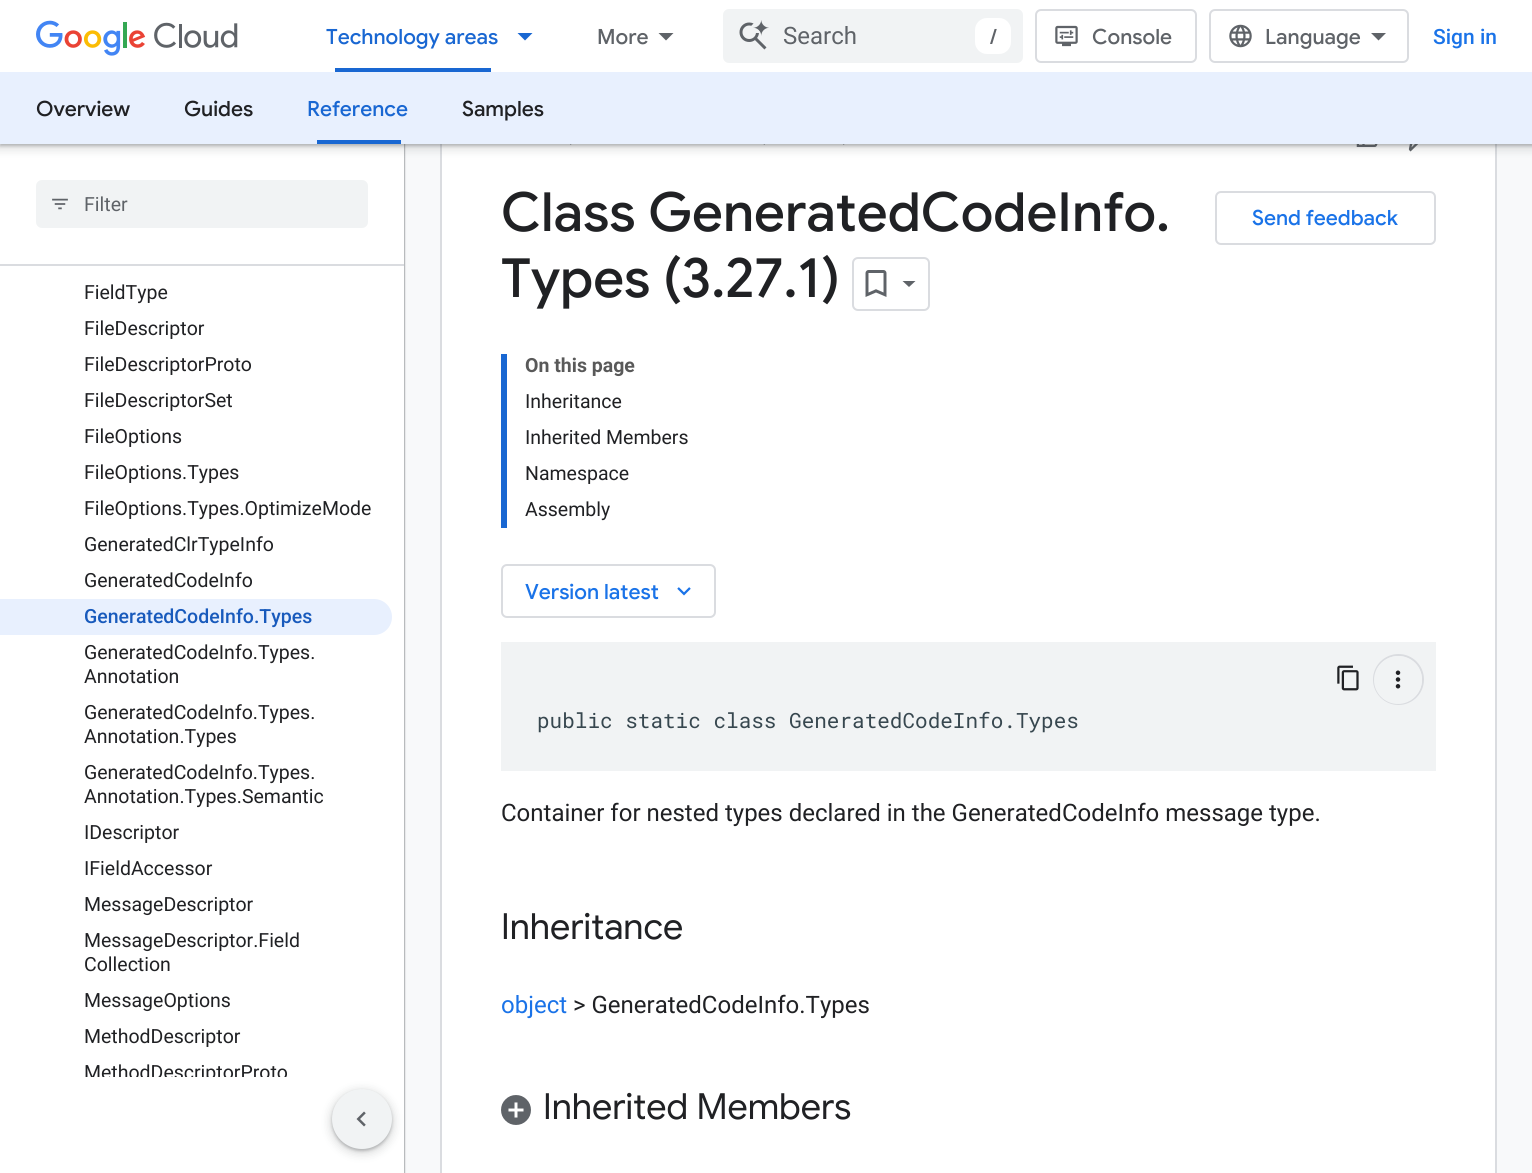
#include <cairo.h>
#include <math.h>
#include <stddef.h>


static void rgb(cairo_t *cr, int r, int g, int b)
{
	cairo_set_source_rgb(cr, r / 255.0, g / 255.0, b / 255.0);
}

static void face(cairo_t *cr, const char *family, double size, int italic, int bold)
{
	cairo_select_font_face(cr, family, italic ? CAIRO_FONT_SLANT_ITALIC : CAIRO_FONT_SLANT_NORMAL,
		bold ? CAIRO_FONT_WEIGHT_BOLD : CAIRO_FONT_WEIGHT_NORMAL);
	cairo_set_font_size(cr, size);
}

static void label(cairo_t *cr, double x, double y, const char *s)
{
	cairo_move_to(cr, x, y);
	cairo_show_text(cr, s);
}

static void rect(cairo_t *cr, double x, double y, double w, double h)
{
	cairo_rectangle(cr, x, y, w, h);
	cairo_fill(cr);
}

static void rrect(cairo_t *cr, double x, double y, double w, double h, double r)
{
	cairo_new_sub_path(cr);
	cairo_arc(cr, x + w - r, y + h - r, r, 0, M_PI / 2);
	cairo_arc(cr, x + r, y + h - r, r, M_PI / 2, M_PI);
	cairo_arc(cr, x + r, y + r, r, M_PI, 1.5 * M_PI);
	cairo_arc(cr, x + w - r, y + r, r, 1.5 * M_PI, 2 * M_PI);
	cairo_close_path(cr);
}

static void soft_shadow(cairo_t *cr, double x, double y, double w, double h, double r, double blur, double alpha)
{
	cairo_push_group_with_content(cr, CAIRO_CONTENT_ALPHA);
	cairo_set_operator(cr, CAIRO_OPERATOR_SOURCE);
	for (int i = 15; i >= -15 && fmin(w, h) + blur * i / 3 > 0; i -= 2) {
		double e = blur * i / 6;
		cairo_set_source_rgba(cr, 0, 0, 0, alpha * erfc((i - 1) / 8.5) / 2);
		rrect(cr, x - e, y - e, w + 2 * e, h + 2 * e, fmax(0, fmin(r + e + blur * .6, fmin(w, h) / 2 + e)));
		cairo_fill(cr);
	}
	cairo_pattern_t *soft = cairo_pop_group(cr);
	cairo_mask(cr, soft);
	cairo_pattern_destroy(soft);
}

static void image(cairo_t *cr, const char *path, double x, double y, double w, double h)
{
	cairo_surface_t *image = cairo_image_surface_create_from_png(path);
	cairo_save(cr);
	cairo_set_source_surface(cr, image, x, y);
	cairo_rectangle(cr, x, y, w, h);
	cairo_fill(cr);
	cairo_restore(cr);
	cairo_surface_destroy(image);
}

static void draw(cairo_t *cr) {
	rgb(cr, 248, 249, 250);
	cairo_paint(cr);
	rgb(cr, 60, 64, 67);
	soft_shadow(cr, 0, 2, 404, 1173, 0, 1, 1);
	rgb(cr, 255, 255, 255);
	rect(cr, 0, 266, 404, 811);
	rect(cr, 0, 144, 404, 120);
	rect(cr, 442, 144, 1053, 1029);
	cairo_rectangle(cr, 441, 60, 1055, 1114);
	rgb(cr, 218, 220, 224);
	cairo_stroke(cr);
	image(cr, "image5.png", 570, 144, 2, 1);
	image(cr, "image6.png", 763, 144, 2, 1);
	image(cr, "image5.png", 843, 144, 2, 1);
	image(cr, "image7.png", 1356, 144, 22, 3);
	image(cr, "image8.png", 1408, 144, 11, 8);
	rgb(cr, 60, 64, 67);
	soft_shadow(cr, -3, -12, 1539, 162, 0, 4.5, 0.15);
	soft_shadow(cr, 0, -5, 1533, 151, 0, 1.5, 0.3);
	rgb(cr, 255, 255, 255);
	rect(cr, 0, 0, 1532, 72);
	image(cr, "image0.png", 36, 20, 202, 36);
	face(cr, "Google Sans Medium", 21, 0, 0);
	rgb(cr, 25, 103, 210);
	label(cr, 326, 44, "Technology areas");
	rect(cr, 335, 68, 156, 4);
	cairo_new_path(cr);
	cairo_move_to(cr, 517.5, 33);
	cairo_line_to(cr, 532.5, 33);
	cairo_line_to(cr, 525, 40.5);
	cairo_close_path(cr);
	cairo_fill(cr);
	rgb(cr, 95, 99, 104);
	label(cr, 597, 44, "More");
	cairo_new_path(cr);
	cairo_move_to(cr, 658.5, 33);
	cairo_line_to(cr, 673.5, 33);
	cairo_line_to(cr, 666, 40.5);
	cairo_close_path(cr);
	cairo_fill(cr);
	rgb(cr, 241, 243, 244);
	rrect(cr, 723, 9, 300, 54, 6);
	cairo_fill(cr);
	image(cr, "image1.png", 739, 20, 30, 30);
	face(cr, "Roboto", 24, 0, 0);
	rgb(cr, 95, 99, 104);
	label(cr, 783, 44, "Search");
	rgb(cr, 255, 255, 255);
	rrect(cr, 975, 18, 36, 36, 12);
	cairo_fill(cr);
	face(cr, "Google Sans Medium", 21, 0, 0);
	rgb(cr, 95, 99, 104);
	label(cr, 990, 44, "/");
	rrect(cr, 1036, 10, 160, 52, 5);
	rgb(cr, 218, 220, 224);
	cairo_stroke(cr);
	image(cr, "image2.png", 1055, 25, 23, 22);
	rgb(cr, 95, 99, 104);
	label(cr, 1092, 44, "Console");
	rrect(cr, 1210, 10, 198, 52, 5);
	rgb(cr, 218, 220, 224);
	cairo_stroke(cr);
	image(cr, "image3.png", 1229, 24, 23, 24);
	rgb(cr, 95, 99, 104);
	label(cr, 1265, 44, "Language");
	cairo_new_path(cr);
	cairo_move_to(cr, 1378.5, 40.5);
	cairo_line_to(cr, 1371, 33);
	cairo_line_to(cr, 1386, 33);
	cairo_close_path(cr);
	cairo_fill(cr);
	face(cr, "Roboto Medium", 21, 0, 0);
	rgb(cr, 26, 115, 232);
	label(cr, 1433, 44, "Sign in");
	rgb(cr, 232, 240, 254);
	rect(cr, 0, 72, 1532, 72);
	face(cr, "Google Sans Medium", 21, 0, 0);
	rgb(cr, 32, 33, 36);
	label(cr, 36, 116, "Overview");
	label(cr, 184, 116, "Guides");
	rgb(cr, 25, 103, 210);
	label(cr, 307, 116, "Reference");
	rect(cr, 317, 140, 84, 4);
	rgb(cr, 32, 33, 36);
	label(cr, 462, 116, "Samples");
	rgb(cr, 218, 220, 224);
	rect(cr, 0, 264, 404, 2);
	rgb(cr, 241, 243, 244);
	rrect(cr, 36, 180, 332, 48, 6);
	cairo_fill(cr);
	image(cr, "image4.png", 52, 198, 16, 12);
	face(cr, "Roboto", 19.5, 0, 0);
	rgb(cr, 95, 99, 104);
	label(cr, 84, 211, "Filter");
	rgb(cr, 32, 33, 36);
	label(cr, 84, 299, "FieldType");
	label(cr, 84, 335, "FileDescriptor");
	label(cr, 84, 371, "FileDescriptorProto");
	label(cr, 84, 407, "FileDescriptorSet");
	label(cr, 84, 443, "FileOptions");
	label(cr, 84, 479, "FileOptions.Types");
	label(cr, 84, 515, "FileOptions.Types.OptimizeMode");
	label(cr, 84, 551, "GeneratedClrTypeInfo");
	label(cr, 84, 587, "GeneratedCodeInfo");
	rgb(cr, 232, 240, 254);
	cairo_new_path(cr);
	cairo_move_to(cr, 0, 599);
	cairo_line_to(cr, 374, 599);
	cairo_curve_to(cr, 384, 599, 392, 607, 392, 617);
	cairo_curve_to(cr, 392, 627, 384, 635, 374, 635);
	cairo_line_to(cr, 0, 635);
	cairo_close_path(cr);
	cairo_fill(cr);
	face(cr, "Roboto Medium", 19.5, 0, 0);
	rgb(cr, 24, 90, 188);
	label(cr, 84, 623, "GeneratedCodeInfo.Types");
	face(cr, "Roboto", 19.5, 0, 0);
	rgb(cr, 32, 33, 36);
	label(cr, 84, 659, "GeneratedCodeInfo.Types.");
	label(cr, 84, 683, "Annotation");
	label(cr, 84, 719, "GeneratedCodeInfo.Types.");
	label(cr, 84, 743, "Annotation.Types");
	label(cr, 84, 779, "GeneratedCodeInfo.Types.");
	label(cr, 84, 803, "Annotation.Types.Semantic");
	label(cr, 84, 839, "IDescriptor");
	label(cr, 84, 875, "IFieldAccessor");
	label(cr, 84, 911, "MessageDescriptor");
	label(cr, 84, 947, "MessageDescriptor.Field");
	label(cr, 84, 971, "Collection");
	label(cr, 84, 1007, "MessageOptions");
	label(cr, 84, 1043, "MethodDescriptor");
	label(cr, 84, 1079, "MethodDescriptorProto");
	face(cr, "Google Sans Medium", 54, 0, 0);
	label(cr, 501, 231, "Class GeneratedCodeInfo.");
	label(cr, 501, 297, "Types (3.27.1)");
	rrect(cr, 853, 258, 76, 52, 5);
	rgb(cr, 218, 220, 224);
	cairo_stroke(cr);
	image(cr, "image9.png", 865, 270, 22, 27);
	rgb(cr, 95, 99, 104);
	cairo_new_path(cr);
	cairo_move_to(cr, 902.5, 281);
	cairo_line_to(cr, 915.5, 281);
	cairo_line_to(cr, 909, 287);
	cairo_close_path(cr);
	cairo_fill(cr);
	rrect(cr, 1216, 192, 219, 52, 5);
	rgb(cr, 218, 220, 224);
	cairo_stroke(cr);
	face(cr, "Google Sans Medium", 21, 0, 0);
	rgb(cr, 26, 115, 232);
	label(cr, 1252, 225, "Send feedback");
	rgb(cr, 25, 103, 210);
	rect(cr, 501, 354, 6, 174);
	face(cr, "Roboto", 19.5, 0, 1);
	rgb(cr, 89, 89, 89);
	label(cr, 525, 372, "On this page");
	face(cr, "Roboto", 19.5, 0, 0);
	rgb(cr, 32, 33, 36);
	label(cr, 525, 408, "Inheritance");
	label(cr, 525, 444, "Inherited Members");
	label(cr, 525, 480, "Namespace");
	label(cr, 525, 516, "Assembly");
	rrect(cr, 502, 565, 213, 52, 5);
	rgb(cr, 218, 220, 224);
	cairo_stroke(cr);
	face(cr, "Google Sans Medium", 21, 0, 0);
	rgb(cr, 26, 115, 232);
	label(cr, 525, 599, "Version latest");
	image(cr, "image10.png", 677, 587, 14, 9);
	rgb(cr, 241, 243, 244);
	rect(cr, 501, 642, 935, 129);
	image(cr, "image11.png", 1337, 665, 22, 26);
	cairo_arc(cr, 1398.5, 679.5, 24.5, 0, 2 * M_PI);
	rgb(cr, 218, 220, 224);
	cairo_stroke(cr);
	rgb(cr, 241, 243, 244);
	cairo_arc(cr, 1398, 680, 24, 0, 2 * M_PI);
	cairo_fill(cr);
	image(cr, "image12.png", 1395, 670, 6, 19);
	face(cr, "Roboto Mono", 21, 0, 0);
	rgb(cr, 55, 71, 79);
	label(cr, 537, 728, "public static class GeneratedCodeInfo.Types");
	face(cr, "Roboto", 24, 0, 0);
	rgb(cr, 32, 33, 36);
	label(cr, 501, 821, "Container for nested types declared in the GeneratedCodeInfo message type.");
	face(cr, "Google Sans", 36, 0, 0);
	label(cr, 501, 939, "Inheritance");
	face(cr, "Roboto", 24, 0, 0);
	rgb(cr, 26, 115, 232);
	label(cr, 501, 1013, "object");
	rgb(cr, 32, 33, 36);
	label(cr, 573, 1013, "> GeneratedCodeInfo.Types");
	image(cr, "image13.png", 501, 1095, 30, 30);
	face(cr, "Google Sans", 36, 0, 0);
	label(cr, 543, 1119, "Inherited Members");
	rgb(cr, 255, 255, 255);
	rect(cr, 0, 1077, 404, 96);
	rgb(cr, 60, 64, 67);
	soft_shadow(cr, 329, 1089, 66, 66, 33, 4.5, 0.15);
	soft_shadow(cr, 332, 1091, 60, 60, 30, 1.5, 0.3);
	rgb(cr, 241, 243, 244);
	cairo_arc(cr, 362, 1119, 30, 0, 2 * M_PI);
	cairo_fill(cr);
	image(cr, "image14.png", 356, 1111, 10, 16);
}

int main(void) {
	cairo_surface_t *surface = cairo_image_surface_create(CAIRO_FORMAT_RGB24, 1532, 1173);
	cairo_t *cr = cairo_create(surface);
	cairo_font_options_t *options = cairo_font_options_create();
	cairo_font_options_set_hint_metrics(options, CAIRO_HINT_METRICS_OFF);
	cairo_font_options_set_hint_style(options, CAIRO_HINT_STYLE_NONE);
	cairo_set_font_options(cr, options);
	cairo_set_miter_limit(cr, 4);
	draw(cr);
	cairo_surface_write_to_png(surface, "render.png");
	cairo_font_options_destroy(options);
	cairo_destroy(cr);
	cairo_surface_destroy(surface);
	return 0;
}
